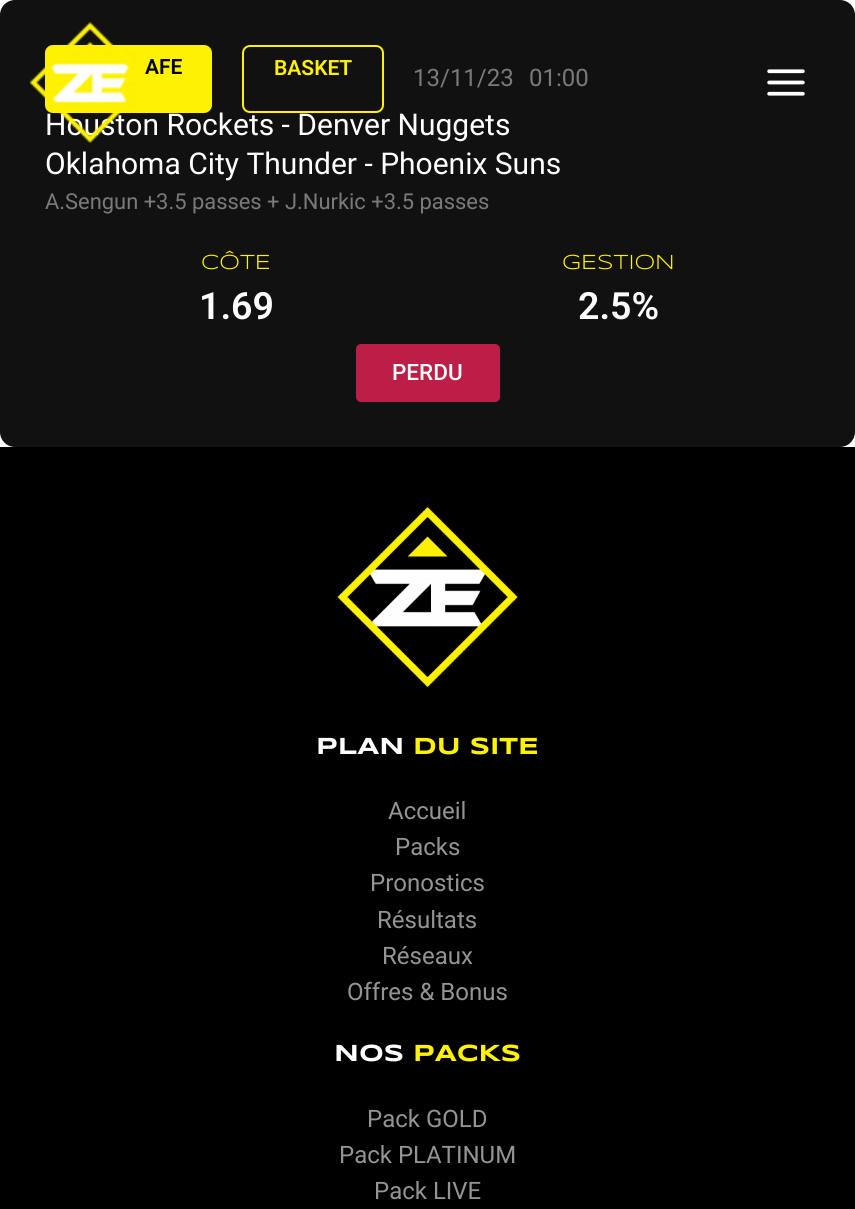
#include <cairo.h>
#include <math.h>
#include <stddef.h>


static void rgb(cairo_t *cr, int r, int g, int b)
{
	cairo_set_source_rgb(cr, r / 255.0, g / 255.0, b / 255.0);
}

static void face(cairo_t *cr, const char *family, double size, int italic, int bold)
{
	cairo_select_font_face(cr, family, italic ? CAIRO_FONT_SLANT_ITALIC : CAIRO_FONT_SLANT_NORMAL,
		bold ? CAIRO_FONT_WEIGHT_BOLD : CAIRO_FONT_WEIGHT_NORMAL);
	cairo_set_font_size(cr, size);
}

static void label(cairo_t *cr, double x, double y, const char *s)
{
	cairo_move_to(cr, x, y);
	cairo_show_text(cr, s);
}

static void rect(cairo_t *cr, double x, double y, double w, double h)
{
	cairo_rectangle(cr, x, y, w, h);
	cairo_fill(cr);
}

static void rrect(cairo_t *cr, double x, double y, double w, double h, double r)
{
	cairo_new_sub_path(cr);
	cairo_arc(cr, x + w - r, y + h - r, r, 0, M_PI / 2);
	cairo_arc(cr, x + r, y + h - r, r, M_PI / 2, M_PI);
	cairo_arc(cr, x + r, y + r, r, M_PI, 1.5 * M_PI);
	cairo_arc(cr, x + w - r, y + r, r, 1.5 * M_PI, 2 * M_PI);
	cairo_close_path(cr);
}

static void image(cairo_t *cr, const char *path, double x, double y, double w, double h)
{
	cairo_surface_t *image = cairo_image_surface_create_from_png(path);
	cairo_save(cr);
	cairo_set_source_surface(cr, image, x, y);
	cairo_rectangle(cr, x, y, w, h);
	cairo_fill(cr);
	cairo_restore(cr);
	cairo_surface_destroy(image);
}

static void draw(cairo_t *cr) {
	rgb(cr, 255, 255, 255);
	cairo_paint(cr);
	rgb(cr, 17, 17, 17);
	rrect(cr, 0, 0, 855, 447, 15);
	cairo_fill(cr);
	rgb(cr, 254, 242, 0);
	rrect(cr, 45, 45, 167, 68, 8);
	cairo_fill(cr);
	rrect(cr, 243, 46, 140, 66, 7);
	cairo_stroke(cr);
	face(cr, "Roboto", 30, 0, 0);
	rgb(cr, 255, 255, 255);
	label(cr, 45, 135, "Houston Rockets - Denver Nuggets");
	image(cr, "image0.png", 30, 22, 112, 121);
	image(cr, "image1.png", 767, 69, 38, 27);
	face(cr, "Roboto SemiBold", 21, 0, 0);
	rgb(cr, 0, 0, 0);
	label(cr, 145, 74, "AFE");
	rgb(cr, 254, 242, 0);
	label(cr, 274, 75, "BASKET");
	face(cr, "Roboto", 24, 0, 0);
	rgb(cr, 122, 122, 122);
	label(cr, 413, 86, "13/11/23");
	label(cr, 529, 86, "01:00");
	face(cr, "Roboto", 30, 0, 0);
	rgb(cr, 255, 255, 255);
	label(cr, 45, 174, "Oklahoma City Thunder - Phoenix Suns");
	face(cr, "Roboto", 21.9, 0, 0);
	rgb(cr, 122, 122, 122);
	label(cr, 45, 209, "A.Sengun +3.5 passes + J.Nurkic +3.5 passes");
	face(cr, "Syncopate", 21, 0, 0);
	rgb(cr, 254, 242, 0);
	label(cr, 201, 269, "CÔTE");
	face(cr, "Roboto SemiBold", 37.5, 0, 0);
	rgb(cr, 255, 255, 255);
	label(cr, 199, 319, "1.69");
	face(cr, "Syncopate", 21, 0, 0);
	rgb(cr, 254, 242, 0);
	label(cr, 562, 269, "GESTION");
	face(cr, "Roboto SemiBold", 37.5, 0, 0);
	rgb(cr, 255, 255, 255);
	label(cr, 578, 319, "2.5%");
	rgb(cr, 188, 30, 72);
	rrect(cr, 356, 344, 144, 58, 5);
	cairo_fill(cr);
	face(cr, "Roboto Medium", 22.5, 0, 0);
	rgb(cr, 255, 255, 255);
	label(cr, 392, 380, "PERDU");
	rgb(cr, 0, 0, 0);
	rect(cr, 0, 447, 855, 762);
	image(cr, "image2.png", 337, 507, 181, 180);
	face(cr, "Syncopate", 24, 0, 1);
	rgb(cr, 255, 255, 255);
	label(cr, 316, 754, "PLAN");
	rgb(cr, 254, 242, 0);
	label(cr, 413, 754, "DU SITE");
	face(cr, "Roboto", 24, 0, 0);
	rgb(cr, 148, 148, 148);
	label(cr, 388, 819, "Accueil");
	label(cr, 395, 855, "Packs");
	label(cr, 370, 891, "Pronostics");
	label(cr, 377, 928, "Résultats");
	label(cr, 382, 964, "Réseaux");
	label(cr, 347, 1000, "Offres & Bonus");
	face(cr, "Syncopate", 24, 0, 1);
	rgb(cr, 255, 255, 255);
	label(cr, 334, 1061, "NOS");
	rgb(cr, 254, 242, 0);
	label(cr, 413, 1061, "PACKS");
	face(cr, "Roboto", 24, 0, 0);
	rgb(cr, 148, 148, 148);
	label(cr, 367, 1127, "Pack GOLD");
	label(cr, 339, 1163, "Pack PLATINUM");
	label(cr, 374, 1199, "Pack LIVE");
}

int main(void) {
	cairo_surface_t *surface = cairo_image_surface_create(CAIRO_FORMAT_RGB24, 855, 1209);
	cairo_t *cr = cairo_create(surface);
	cairo_font_options_t *options = cairo_font_options_create();
	cairo_font_options_set_hint_metrics(options, CAIRO_HINT_METRICS_OFF);
	cairo_font_options_set_hint_style(options, CAIRO_HINT_STYLE_NONE);
	cairo_set_font_options(cr, options);
	cairo_set_miter_limit(cr, 4);
	draw(cr);
	cairo_surface_write_to_png(surface, "render.png");
	cairo_font_options_destroy(options);
	cairo_destroy(cr);
	cairo_surface_destroy(surface);
	return 0;
}
